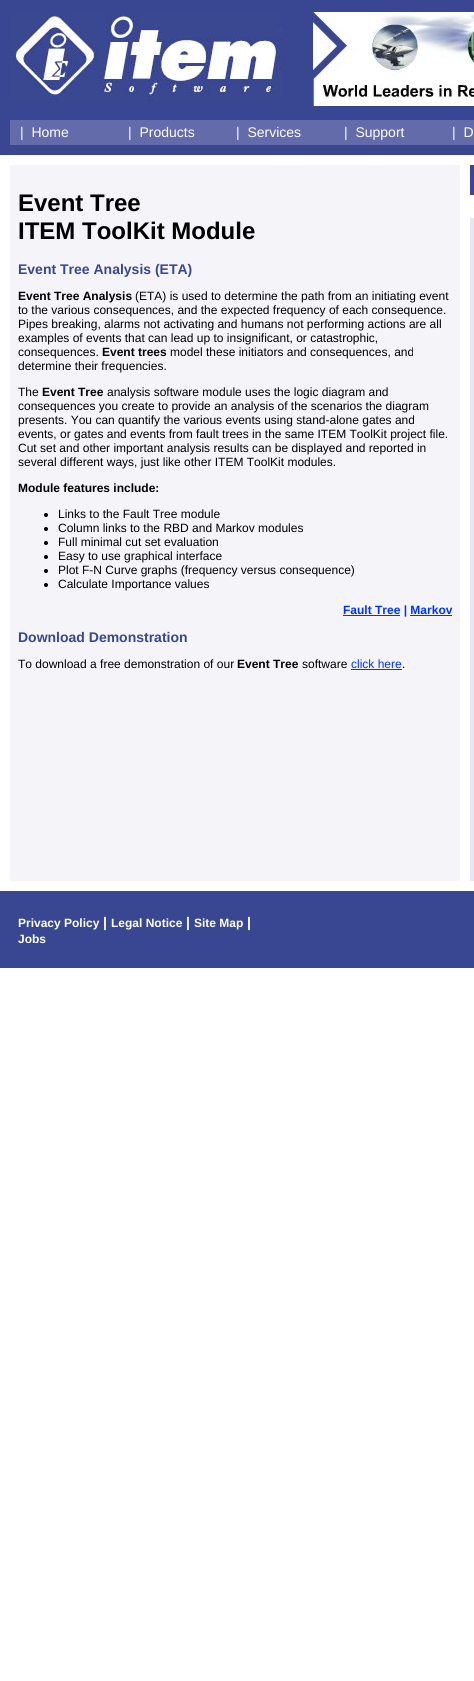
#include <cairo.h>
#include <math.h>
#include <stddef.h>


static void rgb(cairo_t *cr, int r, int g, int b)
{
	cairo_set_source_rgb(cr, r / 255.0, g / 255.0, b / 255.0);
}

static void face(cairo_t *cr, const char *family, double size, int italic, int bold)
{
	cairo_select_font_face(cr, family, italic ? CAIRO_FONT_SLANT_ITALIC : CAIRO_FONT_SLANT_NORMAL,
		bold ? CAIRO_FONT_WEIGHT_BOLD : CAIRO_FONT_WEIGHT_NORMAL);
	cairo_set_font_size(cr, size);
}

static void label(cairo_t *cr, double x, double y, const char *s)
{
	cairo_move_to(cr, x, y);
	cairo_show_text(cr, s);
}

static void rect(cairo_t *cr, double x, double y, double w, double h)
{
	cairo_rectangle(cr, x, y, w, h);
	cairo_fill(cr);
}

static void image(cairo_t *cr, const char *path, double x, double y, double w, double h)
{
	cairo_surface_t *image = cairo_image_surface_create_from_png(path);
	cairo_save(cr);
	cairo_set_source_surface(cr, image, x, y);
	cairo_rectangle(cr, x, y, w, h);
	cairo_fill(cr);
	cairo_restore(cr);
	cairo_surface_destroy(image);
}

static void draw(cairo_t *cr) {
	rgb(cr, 255, 255, 255);
	cairo_paint(cr);
	rgb(cr, 57, 71, 146);
	rect(cr, 0, 0, 474, 155);
	image(cr, "image0.png", 10, 14, 272, 87);
	image(cr, "image1.png", 313, 12, 161, 94);
	rgb(cr, 99, 107, 170);
	rect(cr, 10, 120, 464, 25);
	face(cr, "Liberation Sans", 14, 0, 0);
	rgb(cr, 255, 255, 255);
	label(cr, 20, 137, "|  Home");
	label(cr, 128, 137, "|  Products");
	label(cr, 236, 137, "|  Services");
	label(cr, 344, 137, "|  Support");
	label(cr, 452, 137, "|  D");
	rgb(cr, 57, 71, 146);
	rect(cr, 470, 165, 4, 30);
	rgb(cr, 244, 244, 249);
	rect(cr, 10, 165, 450, 716);
	face(cr, "Liberation Sans", 24, 0, 1);
	rgb(cr, 0, 0, 0);
	label(cr, 18, 211, "Event Tree");
	label(cr, 18, 239, "ITEM ToolKit Module");
	face(cr, "Liberation Sans", 14, 0, 1);
	rgb(cr, 57, 71, 146);
	label(cr, 18, 274, "Event Tree Analysis (ETA)");
	face(cr, "Liberation Sans", 12, 0, 1);
	rgb(cr, 0, 0, 0);
	label(cr, 18, 300, "Event Tree Analysis");
	face(cr, "Liberation Sans", 12, 0, 0);
	label(cr, 135, 300, "(ETA) is used to determine the path from an initiating event");
	label(cr, 18, 314, "to the various consequences, and the expected frequency of each consequence.");
	label(cr, 18, 328, "Pipes breaking, alarms not activating and humans not performing actions are all");
	label(cr, 18, 342, "examples of events that can lead up to insignificant, or catastrophic,");
	label(cr, 18, 356, "consequences.");
	face(cr, "Liberation Sans", 12, 0, 1);
	label(cr, 102, 356, "Event trees");
	face(cr, "Liberation Sans", 12, 0, 0);
	label(cr, 170, 356, "model these initiators and consequences, and");
	label(cr, 18, 370, "determine their frequencies.");
	label(cr, 18, 396, "The");
	face(cr, "Liberation Sans", 12, 0, 1);
	label(cr, 42, 396, "Event Tree");
	face(cr, "Liberation Sans", 12, 0, 0);
	label(cr, 107, 396, "analysis software module uses the logic diagram and");
	label(cr, 18, 410, "consequences you create to provide an analysis of the scenarios the diagram");
	label(cr, 18, 424, "presents. You can quantify the various events using stand-alone gates and");
	label(cr, 18, 438, "events, or gates and events from fault trees in the same ITEM ToolKit project file.");
	label(cr, 18, 452, "Cut set and other important analysis results can be displayed and reported in");
	label(cr, 18, 466, "several different ways, just like other ITEM ToolKit modules.");
	face(cr, "Liberation Sans", 12, 0, 1);
	label(cr, 18, 492, "Module features include:");
	cairo_new_path(cr);
	cairo_arc(cr, 46, 515, 2, 0, 2 * M_PI);
	cairo_fill(cr);
	face(cr, "Liberation Sans", 12, 0, 0);
	label(cr, 58, 518, "Links to the Fault Tree module");
	cairo_new_path(cr);
	cairo_arc(cr, 46, 529, 2, 0, 2 * M_PI);
	cairo_fill(cr);
	label(cr, 58, 532, "Column links to the RBD and Markov modules");
	cairo_new_path(cr);
	cairo_arc(cr, 46, 543, 2, 0, 2 * M_PI);
	cairo_fill(cr);
	label(cr, 58, 546, "Full minimal cut set evaluation");
	cairo_new_path(cr);
	cairo_arc(cr, 46, 557, 2, 0, 2 * M_PI);
	cairo_fill(cr);
	label(cr, 58, 560, "Easy to use graphical interface");
	cairo_new_path(cr);
	cairo_arc(cr, 46, 571, 2, 0, 2 * M_PI);
	cairo_fill(cr);
	label(cr, 58, 574, "Plot F-N Curve graphs (frequency versus consequence)");
	cairo_new_path(cr);
	cairo_arc(cr, 46, 585, 2, 0, 2 * M_PI);
	cairo_fill(cr);
	label(cr, 58, 588, "Calculate Importance values");
	rgb(cr, 0, 51, 255);
	rect(cr, 343, 615, 57, 1);
	face(cr, "Liberation Sans", 12, 0, 1);
	label(cr, 343, 614, "Fault Tree | Markov");
	rect(cr, 410, 615, 42, 1);
	face(cr, "Liberation Sans", 14, 0, 1);
	rgb(cr, 57, 71, 146);
	label(cr, 18, 642, "Download Demonstration");
	face(cr, "Liberation Sans", 12, 0, 0);
	rgb(cr, 0, 0, 0);
	label(cr, 18, 668, "To download a free demonstration of our");
	face(cr, "Liberation Sans", 12, 0, 1);
	label(cr, 237, 668, "Event Tree");
	face(cr, "Liberation Sans", 12, 0, 0);
	label(cr, 302, 668, "software");
	rgb(cr, 0, 51, 255);
	label(cr, 351, 668, "click here");
	rect(cr, 351, 669, 51, 1);
	rgb(cr, 0, 0, 0);
	label(cr, 402, 668, ".");
	rgb(cr, 231, 230, 241);
	rect(cr, 470, 218, 4, 663);
	rgb(cr, 57, 71, 146);
	rect(cr, 0, 891, 474, 77);
	face(cr, "Liberation Sans", 12, 0, 1);
	rgb(cr, 255, 255, 255);
	label(cr, 18, 927, "Privacy Policy");
	face(cr, "Liberation Sans", 14, 0, 1);
	label(cr, 103, 927, "|");
	face(cr, "Liberation Sans", 12, 0, 1);
	label(cr, 111, 927, "Legal Notice");
	face(cr, "Liberation Sans", 14, 0, 1);
	label(cr, 186, 927, "|");
	face(cr, "Liberation Sans", 12, 0, 1);
	label(cr, 194, 927, "Site Map");
	face(cr, "Liberation Sans", 14, 0, 1);
	label(cr, 247, 927, "|");
	face(cr, "Liberation Sans", 12, 0, 1);
	label(cr, 18, 943, "Jobs");
}

int main(void) {
	cairo_surface_t *surface = cairo_image_surface_create(CAIRO_FORMAT_RGB24, 474, 1681);
	cairo_t *cr = cairo_create(surface);
	cairo_font_options_t *options = cairo_font_options_create();
	cairo_font_options_set_hint_metrics(options, CAIRO_HINT_METRICS_OFF);
	cairo_font_options_set_hint_style(options, CAIRO_HINT_STYLE_NONE);
	cairo_set_font_options(cr, options);
	cairo_set_miter_limit(cr, 4);
	draw(cr);
	cairo_surface_write_to_png(surface, "render.png");
	cairo_font_options_destroy(options);
	cairo_destroy(cr);
	cairo_surface_destroy(surface);
	return 0;
}
